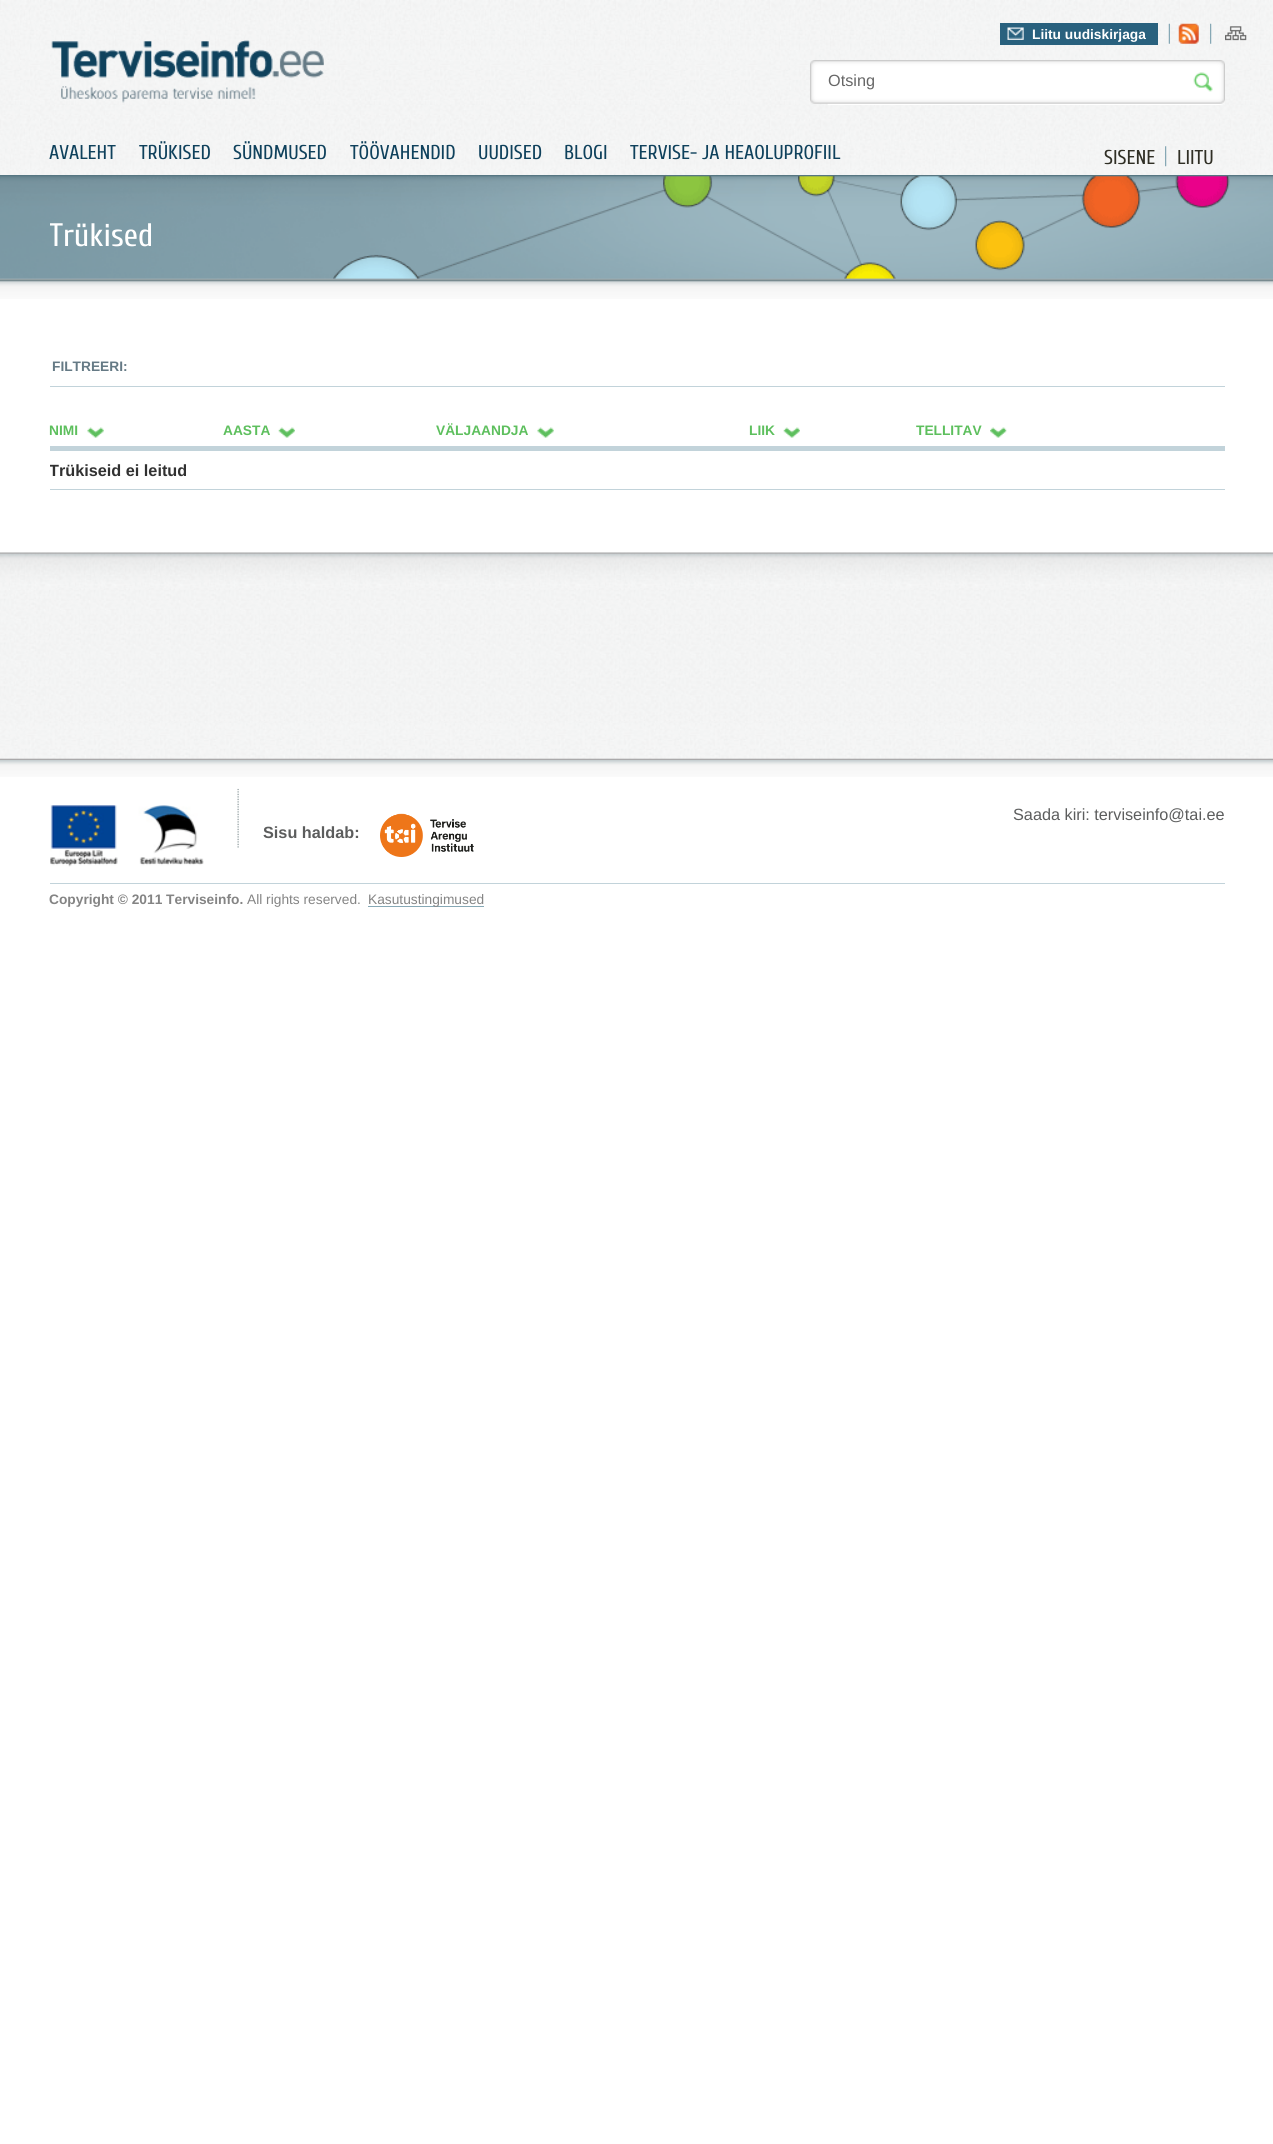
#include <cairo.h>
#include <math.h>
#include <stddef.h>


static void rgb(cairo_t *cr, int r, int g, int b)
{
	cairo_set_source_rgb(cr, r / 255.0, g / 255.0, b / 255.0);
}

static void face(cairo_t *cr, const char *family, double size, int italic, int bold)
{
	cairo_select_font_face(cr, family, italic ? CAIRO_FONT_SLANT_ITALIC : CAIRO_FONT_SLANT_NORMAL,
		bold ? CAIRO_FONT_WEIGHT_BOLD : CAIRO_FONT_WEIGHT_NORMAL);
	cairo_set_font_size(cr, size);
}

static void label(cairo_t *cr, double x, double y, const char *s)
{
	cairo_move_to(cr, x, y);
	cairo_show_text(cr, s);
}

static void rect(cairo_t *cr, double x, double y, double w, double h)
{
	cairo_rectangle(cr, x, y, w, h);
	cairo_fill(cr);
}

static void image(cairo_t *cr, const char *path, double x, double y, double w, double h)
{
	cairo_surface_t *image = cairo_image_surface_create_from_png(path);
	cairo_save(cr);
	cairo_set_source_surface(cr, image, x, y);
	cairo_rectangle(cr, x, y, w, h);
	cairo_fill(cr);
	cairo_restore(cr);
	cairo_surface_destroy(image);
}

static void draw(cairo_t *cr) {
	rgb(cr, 255, 255, 255);
	cairo_paint(cr);
	image(cr, "image0.png", 0, 0, 1273, 175);
	image(cr, "image1.png", 51, 40, 273, 63);
	image(cr, "image2.png", 1168, 23, 2, 21);
	rgb(cr, 41, 97, 126);
	rect(cr, 1000, 23, 158, 22);
	image(cr, "image3.png", 1007, 27, 17, 13);
	face(cr, "Liberation Sans", 13.75, 0, 1);
	rgb(cr, 255, 255, 255);
	label(cr, 1032, 39, "Liitu uudiskirjaga");
	image(cr, "image4.png", 1210, 23, 2, 21);
	image(cr, "image5.png", 1178, 23, 21, 21);
	image(cr, "image6.png", 1225, 26, 22, 15);
	image(cr, "image7.png", 810, 60, 370, 45);
	face(cr, "Liberation Sans", 16.25, 0, 0);
	rgb(cr, 102, 102, 102);
	label(cr, 828, 86, "Otsing");
	image(cr, "image8.png", 1180, 60, 45, 45);
	face(cr, "Cuprum", 20, 0, 0);
	rgb(cr, 15, 65, 92);
	label(cr, 49, 159, "AVALEHT");
	label(cr, 139, 159, "TRÜKISED");
	label(cr, 233, 159, "SÜNDMUSED");
	label(cr, 350, 159, "TÖÖVAHENDID");
	label(cr, 478, 159, "UUDISED");
	label(cr, 564, 159, "BLOGI");
	label(cr, 630, 159, "TERVISE- JA HEAOLUPROFIIL");
	image(cr, "image9.png", 1165, 146, 2, 21);
	rgb(cr, 48, 47, 37);
	label(cr, 1104, 164, "SISENE");
	label(cr, 1177, 164, "LIITU");
	image(cr, "image10.png", 0, 175, 1273, 104);
	image(cr, "image11.png", 0, 176, 1273, 103);
	cairo_save(cr);
	cairo_rectangle(cr, 50, 175, 1175, 80);
	cairo_clip(cr);
	face(cr, "Cuprum", 32.5, 0, 0);
	rgb(cr, 255, 255, 255);
	label(cr, 49, 246, "Trükised");
	cairo_restore(cr);
	image(cr, "image12.png", 0, 278, 1273, 21);
	rgb(cr, 194, 211, 218);
	rect(cr, 50, 386, 1175, 1);
	face(cr, "Liberation Sans", 13.75, 0, 1);
	rgb(cr, 101, 122, 133);
	label(cr, 52, 371, "FILTREERI:");
	image(cr, "image13.png", 87, 427, 17, 11);
	rgb(cr, 93, 191, 93);
	label(cr, 49, 435, "NIMI");
	image(cr, "image14.png", 278, 427, 17, 11);
	label(cr, 223, 435, "AASTA");
	image(cr, "image15.png", 537, 427, 17, 11);
	label(cr, 436, 435, "VÄLJAANDJA");
	image(cr, "image16.png", 783, 427, 17, 11);
	label(cr, 749, 435, "LIIK");
	image(cr, "image17.png", 990, 427, 17, 11);
	label(cr, 916, 435, "TELLITAV");
	rgb(cr, 194, 211, 218);
	rect(cr, 50, 446, 1175, 5);
	rect(cr, 50, 489, 1175, 1);
	cairo_save(cr);
	cairo_rectangle(cr, 50, 279, 1175, 264);
	cairo_clip(cr);
	face(cr, "Liberation Sans", 16.25, 0, 1);
	rgb(cr, 49, 49, 49);
	label(cr, 49, 476, "Trükiseid ei leitud");
	cairo_restore(cr);
	image(cr, "image18.png", 0, 552, 1273, 171);
	image(cr, "image19.png", 0, 552, 1273, 38);
	image(cr, "image20.png", 0, 723, 1273, 37);
	image(cr, "image21.png", 49, 588, 1181, 133);
	image(cr, "image22.png", 0, 760, 1273, 17);
	rect(cr, 50, 883, 1175, 1);
	image(cr, "image23.png", 237, 788, 2, 60);
	image(cr, "image24.png", 50, 805, 154, 62);
	face(cr, "Liberation Sans", 16.25, 0, 0);
	rgb(cr, 92, 93, 93);
	label(cr, 1013, 820, "Saada kiri: terviseinfo@tai.ee");
	face(cr, "Liberation Sans", 16.25, 0, 1);
	label(cr, 263, 838, "Sisu haldab:");
	image(cr, "image25.png", 380, 813, 94, 44);
	face(cr, "Liberation Sans", 13.75, 0, 1);
	rgb(cr, 132, 132, 132);
	label(cr, 49, 904, "Copyright © 2011 Terviseinfo.");
	face(cr, "Liberation Sans", 13.75, 0, 0);
	label(cr, 247, 904, "All rights reserved.");
	rgb(cr, 134, 168, 181);
	rect(cr, 368, 906, 116, 1);
	rgb(cr, 132, 132, 132);
	label(cr, 368, 904, "Kasutustingimused");
}

int main(void) {
	cairo_surface_t *surface = cairo_image_surface_create(CAIRO_FORMAT_RGB24, 1273, 2144);
	cairo_t *cr = cairo_create(surface);
	cairo_font_options_t *options = cairo_font_options_create();
	cairo_font_options_set_hint_metrics(options, CAIRO_HINT_METRICS_OFF);
	cairo_font_options_set_hint_style(options, CAIRO_HINT_STYLE_NONE);
	cairo_set_font_options(cr, options);
	cairo_set_miter_limit(cr, 4);
	draw(cr);
	cairo_surface_write_to_png(surface, "render.png");
	cairo_font_options_destroy(options);
	cairo_destroy(cr);
	cairo_surface_destroy(surface);
	return 0;
}
